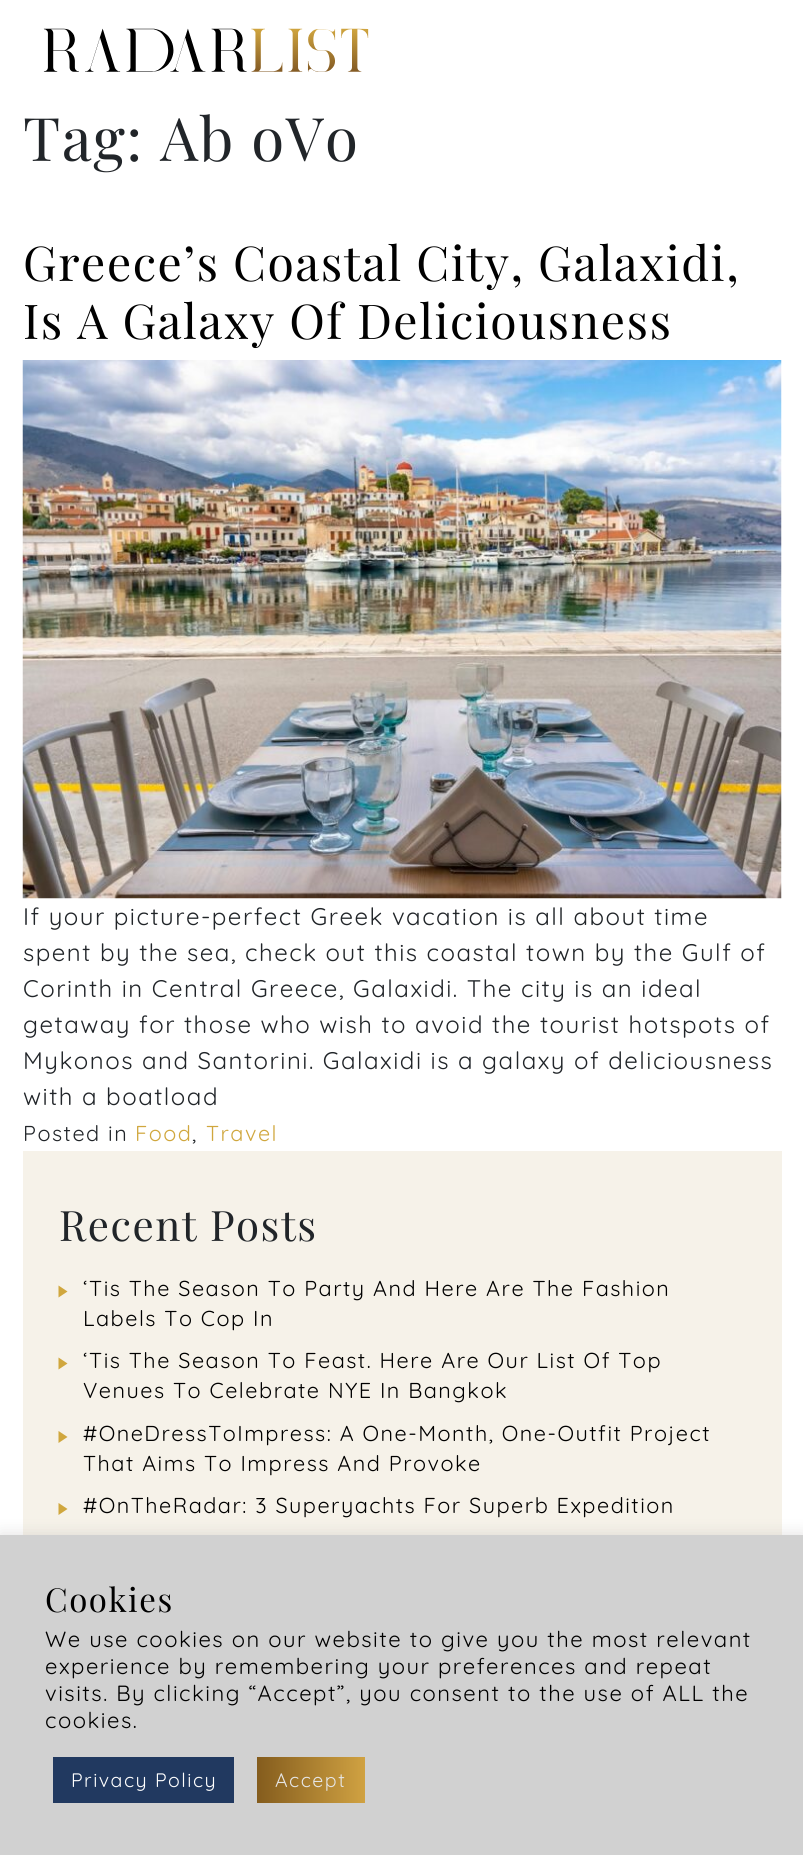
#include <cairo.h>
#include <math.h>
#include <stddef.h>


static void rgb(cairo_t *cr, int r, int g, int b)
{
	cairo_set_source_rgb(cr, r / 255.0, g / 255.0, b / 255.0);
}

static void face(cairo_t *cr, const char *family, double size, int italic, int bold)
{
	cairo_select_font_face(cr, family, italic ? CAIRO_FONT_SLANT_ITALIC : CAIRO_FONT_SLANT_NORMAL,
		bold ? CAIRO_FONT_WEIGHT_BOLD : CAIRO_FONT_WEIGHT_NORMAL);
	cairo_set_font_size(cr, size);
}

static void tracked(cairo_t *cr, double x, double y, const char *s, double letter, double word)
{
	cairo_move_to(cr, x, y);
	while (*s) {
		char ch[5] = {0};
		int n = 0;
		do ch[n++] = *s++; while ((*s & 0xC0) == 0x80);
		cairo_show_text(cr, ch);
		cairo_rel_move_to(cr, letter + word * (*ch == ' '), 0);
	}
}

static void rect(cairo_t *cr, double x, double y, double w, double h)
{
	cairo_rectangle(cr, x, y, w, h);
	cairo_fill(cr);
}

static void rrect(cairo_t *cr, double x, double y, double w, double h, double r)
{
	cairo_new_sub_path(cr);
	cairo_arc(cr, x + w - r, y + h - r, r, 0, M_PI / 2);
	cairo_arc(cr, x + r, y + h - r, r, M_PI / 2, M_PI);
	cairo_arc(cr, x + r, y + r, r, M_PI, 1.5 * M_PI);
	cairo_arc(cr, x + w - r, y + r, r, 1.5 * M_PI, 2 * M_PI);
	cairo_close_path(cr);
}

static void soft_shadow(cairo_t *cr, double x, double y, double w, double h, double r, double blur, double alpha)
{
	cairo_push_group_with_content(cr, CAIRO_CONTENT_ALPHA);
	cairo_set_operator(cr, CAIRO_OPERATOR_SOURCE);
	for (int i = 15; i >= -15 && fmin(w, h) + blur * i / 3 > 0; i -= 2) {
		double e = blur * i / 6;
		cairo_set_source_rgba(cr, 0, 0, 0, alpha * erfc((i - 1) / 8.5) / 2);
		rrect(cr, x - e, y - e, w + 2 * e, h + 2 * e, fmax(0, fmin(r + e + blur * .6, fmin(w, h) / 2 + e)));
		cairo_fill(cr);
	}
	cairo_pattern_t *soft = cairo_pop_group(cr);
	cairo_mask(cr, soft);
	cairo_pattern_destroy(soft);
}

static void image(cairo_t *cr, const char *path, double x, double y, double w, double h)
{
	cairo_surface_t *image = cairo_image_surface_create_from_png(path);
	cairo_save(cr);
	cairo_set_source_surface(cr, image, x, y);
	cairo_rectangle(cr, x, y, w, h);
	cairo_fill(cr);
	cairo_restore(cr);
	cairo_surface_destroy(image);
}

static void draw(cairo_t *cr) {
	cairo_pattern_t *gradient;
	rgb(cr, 255, 255, 255);
	cairo_paint(cr);
	image(cr, "image0.png", 43, 28, 326, 44);
	face(cr, "Playfair Display", 60, 0, 0);
	rgb(cr, 33, 37, 41);
	tracked(cr, 23, 161, "Tag: Ab oVo", 1.5, 0);
	face(cr, "Playfair Display", 48, 0, 0);
	rgb(cr, 0, 0, 0);
	tracked(cr, 23, 281, "Greece’s Coastal City, Galaxidi,", 1.5, 0);
	tracked(cr, 23, 339, "Is A Galaxy Of Deliciousness", 1.5, 0);
	image(cr, "image1.png", 22, 360, 760, 539);
	face(cr, "Quicksand", 24, 0, 0);
	rgb(cr, 33, 37, 41);
	tracked(cr, 23, 925, "If your picture-perfect Greek vacation is all about time", 1.5, 0);
	tracked(cr, 23, 961, "spent by the sea, check out this coastal town by the Gulf of", 1.5, 0);
	tracked(cr, 23, 997, "Corinth in Central Greece, Galaxidi. The city is an ideal", 1.5, 0);
	tracked(cr, 23, 1033, "getaway for those who wish to avoid the tourist hotspots of", 1.5, 0);
	tracked(cr, 23, 1069, "Mykonos and Santorini. Galaxidi is a galaxy of deliciousness", 1.5, 0);
	tracked(cr, 23, 1105, "with a boatload", 1.5, 0);
	face(cr, "Quicksand", 21.6, 0, 0);
	tracked(cr, 23, 1141, "Posted in", 1.5, 0);
	rgb(cr, 208, 167, 62);
	tracked(cr, 135, 1141, "Food", 1.5, 0);
	rgb(cr, 33, 37, 41);
	tracked(cr, 192, 1141, ",", 1.5, 0);
	rgb(cr, 208, 167, 62);
	tracked(cr, 206, 1141, "Travel", 1.5, 0);
	rgb(cr, 246, 242, 233);
	rect(cr, 23, 1151, 759, 384);
	face(cr, "Playfair Display", 42, 0, 0);
	rgb(cr, 33, 37, 41);
	tracked(cr, 59, 1241, "Recent Posts", 1.5, 0);
	rgb(cr, 208, 167, 62);
	cairo_new_path(cr);
	cairo_move_to(cr, 58.5, 1297.5);
	cairo_line_to(cr, 58.5, 1285.5);
	cairo_line_to(cr, 67.5, 1291.5);
	cairo_close_path(cr);
	cairo_fill(cr);
	face(cr, "Quicksand", 21.6, 0, 0);
	rgb(cr, 0, 0, 0);
	tracked(cr, 83, 1296, "‘Tis The Season To Party And Here Are The Fashion", 1.5, 0);
	tracked(cr, 83, 1326, "Labels To Cop In", 1.5, 0);
	rgb(cr, 208, 167, 62);
	cairo_new_path(cr);
	cairo_move_to(cr, 58.5, 1369.5);
	cairo_line_to(cr, 58.5, 1357.5);
	cairo_line_to(cr, 67.5, 1363.5);
	cairo_close_path(cr);
	cairo_fill(cr);
	rgb(cr, 0, 0, 0);
	tracked(cr, 83, 1368, "‘Tis The Season To Feast. Here Are Our List Of Top", 1.5, 0);
	tracked(cr, 83, 1398, "Venues To Celebrate NYE In Bangkok", 1.5, 0);
	rgb(cr, 208, 167, 62);
	cairo_new_path(cr);
	cairo_move_to(cr, 58.5, 1443);
	cairo_line_to(cr, 58.5, 1431);
	cairo_line_to(cr, 67.5, 1437);
	cairo_close_path(cr);
	cairo_fill(cr);
	rgb(cr, 0, 0, 0);
	tracked(cr, 83, 1441, "#OneDressToImpress: A One-Month, One-Outfit Project", 1.5, 0);
	tracked(cr, 83, 1471, "That Aims To Impress And Provoke", 1.5, 0);
	rgb(cr, 208, 167, 62);
	cairo_new_path(cr);
	cairo_move_to(cr, 58.5, 1515);
	cairo_line_to(cr, 58.5, 1503);
	cairo_line_to(cr, 67.5, 1509);
	cairo_close_path(cr);
	cairo_fill(cr);
	rgb(cr, 0, 0, 0);
	tracked(cr, 83, 1513, "#OnTheRadar: 3 Superyachts For Superb Expedition", 1.5, 0);
	rgb(cr, 172, 171, 171);
	soft_shadow(cr, 0, 1533, 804, 321, 0, 7.5, 0.3);
	rgb(cr, 209, 209, 209);
	rect(cr, 0, 1535, 803, 320);
	face(cr, "Playfair Display", 33, 0, 0);
	rgb(cr, 0, 0, 0);
	tracked(cr, 45, 1612, "Cookies", 1.5, 0);
	face(cr, "Quicksand", 22, 0, 0);
	tracked(cr, 45, 1647, "We use cookies on our website to give you the most relevant", 1.5, 0);
	tracked(cr, 45, 1674, "experience by remembering your preferences and repeat", 1.5, 0);
	tracked(cr, 45, 1701, "visits. By clicking “Accept”, you consent to the use of ALL the", 1.5, 0);
	tracked(cr, 45, 1728, "cookies.", 1.5, 0);
	rgb(cr, 33, 57, 96);
	rect(cr, 53, 1757, 181, 46);
	face(cr, "Quicksand", 19.5, 0, 0);
	rgb(cr, 255, 255, 255);
	tracked(cr, 71, 1787, "Privacy Policy", 1.5, 0);
	gradient = cairo_pattern_create_linear(257, 1780, 365, 1780);
	cairo_pattern_add_color_stop_rgba(gradient, 0, 0.518, 0.361, 0.114, 1);
	cairo_pattern_add_color_stop_rgba(gradient, 1, 0.816, 0.635, 0.259, 1);
	cairo_pattern_add_color_stop_rgba(gradient, 1, 0.518, 0.361, 0.114, 1);
	cairo_set_source(cr, gradient);
	cairo_pattern_destroy(gradient);
	rect(cr, 257, 1757, 108, 46);
	rgb(cr, 229, 229, 229);
	tracked(cr, 275, 1787, "Accept", 1.5, 0);
}

int main(void) {
	cairo_surface_t *surface = cairo_image_surface_create(CAIRO_FORMAT_RGB24, 803, 1855);
	cairo_t *cr = cairo_create(surface);
	cairo_font_options_t *options = cairo_font_options_create();
	cairo_font_options_set_hint_metrics(options, CAIRO_HINT_METRICS_OFF);
	cairo_font_options_set_hint_style(options, CAIRO_HINT_STYLE_NONE);
	cairo_set_font_options(cr, options);
	cairo_set_miter_limit(cr, 4);
	draw(cr);
	cairo_surface_write_to_png(surface, "render.png");
	cairo_font_options_destroy(options);
	cairo_destroy(cr);
	cairo_surface_destroy(surface);
	return 0;
}
